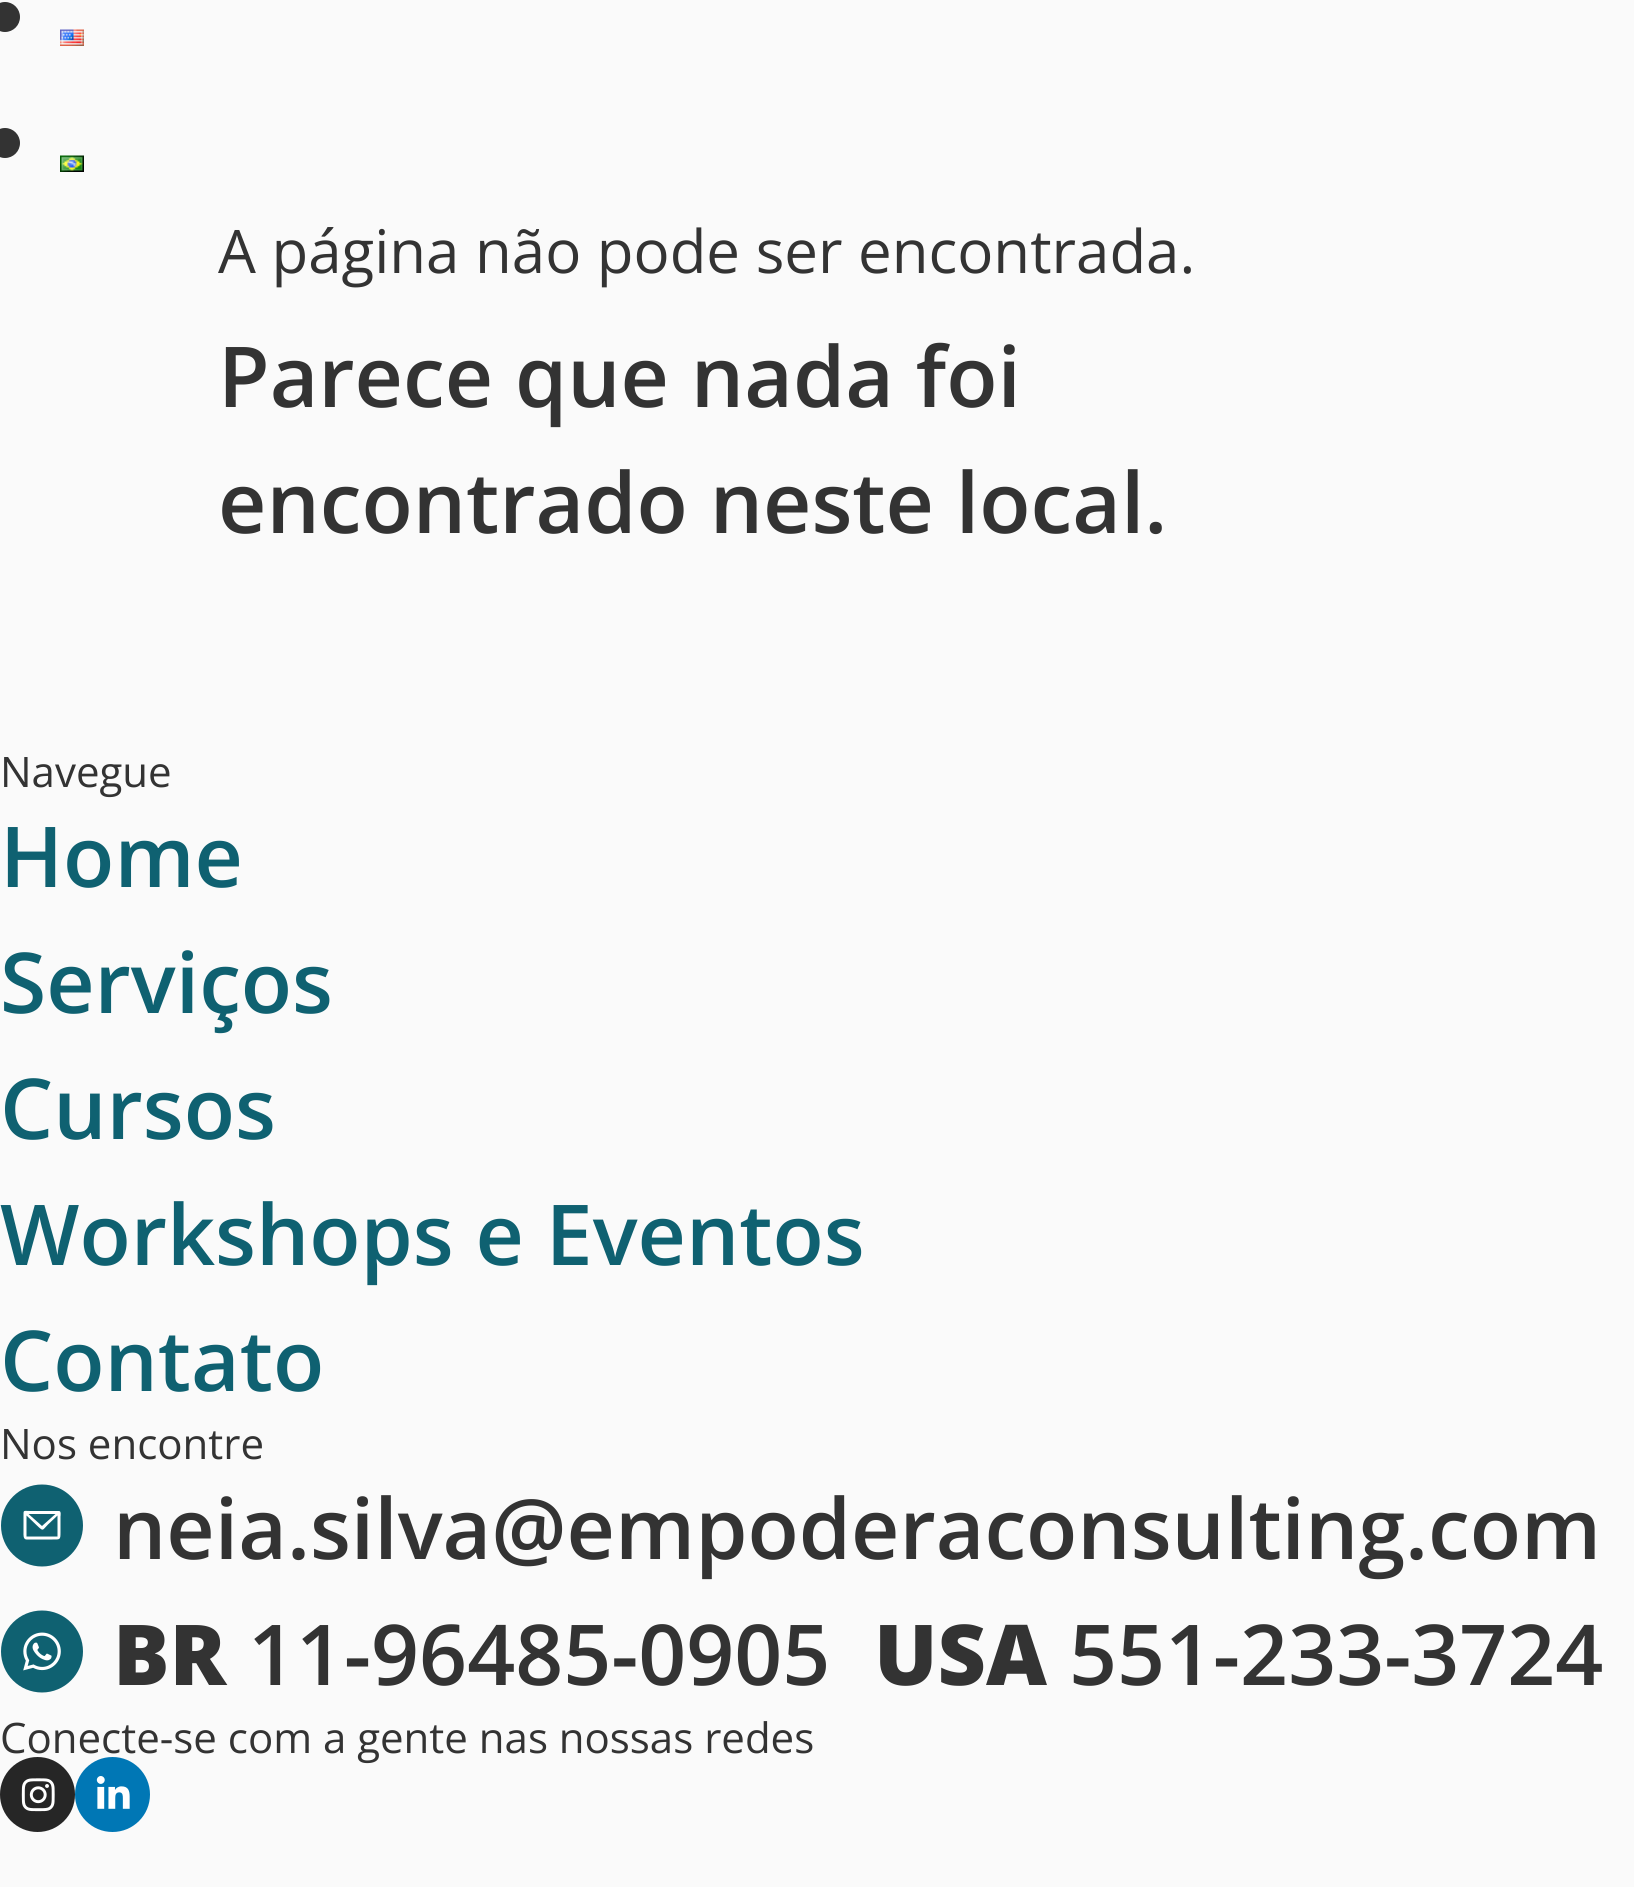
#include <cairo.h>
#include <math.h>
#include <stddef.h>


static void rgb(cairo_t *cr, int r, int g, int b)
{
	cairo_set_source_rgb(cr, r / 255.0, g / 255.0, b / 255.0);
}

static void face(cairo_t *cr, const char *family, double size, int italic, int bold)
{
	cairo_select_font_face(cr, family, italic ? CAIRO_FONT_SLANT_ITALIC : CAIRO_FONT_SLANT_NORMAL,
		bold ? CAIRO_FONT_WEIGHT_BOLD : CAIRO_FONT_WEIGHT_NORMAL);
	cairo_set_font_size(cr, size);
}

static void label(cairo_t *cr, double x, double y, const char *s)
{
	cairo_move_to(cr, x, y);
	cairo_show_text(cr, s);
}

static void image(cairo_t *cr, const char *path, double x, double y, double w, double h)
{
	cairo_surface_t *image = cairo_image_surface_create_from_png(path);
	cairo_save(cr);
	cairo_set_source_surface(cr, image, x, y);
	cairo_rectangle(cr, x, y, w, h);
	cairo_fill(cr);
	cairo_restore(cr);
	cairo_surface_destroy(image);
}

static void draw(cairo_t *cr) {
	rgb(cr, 250, 250, 250);
	cairo_paint(cr);
	rgb(cr, 51, 51, 51);
	cairo_arc(cr, 5, 17, 15, 0, 2 * M_PI);
	cairo_fill(cr);
	image(cr, "image0.png", 60, 29, 24, 17);
	cairo_arc(cr, 5, 143, 15, 0, 2 * M_PI);
	cairo_fill(cr);
	image(cr, "image1.png", 60, 155, 24, 17);
	face(cr, "Open Sans", 60, 0, 0);
	label(cr, 218, 273, "A página não pode ser encontrada.");
	face(cr, "Open Sans SemiBold", 84, 0, 0);
	label(cr, 218, 407, "Parece que nada foi");
	label(cr, 218, 533, "encontrado neste local.");
	face(cr, "Open Sans", 42, 0, 0);
	label(cr, 0, 787, "Navegue");
	face(cr, "Open Sans SemiBold", 84, 0, 0);
	rgb(cr, 15, 97, 113);
	label(cr, 0, 887, "Home");
	label(cr, 0, 1013, "Serviços");
	label(cr, 0, 1139, "Cursos");
	label(cr, 0, 1265, "Workshops e Eventos");
	label(cr, 0, 1391, "Contato");
	face(cr, "Open Sans", 42, 0, 0);
	rgb(cr, 51, 51, 51);
	label(cr, 0, 1459, "Nos encontre");
	rgb(cr, 15, 97, 113);
	cairo_new_path(cr);
	cairo_arc(cr, 42, 1525.5, 41, 0, 2 * M_PI);
	cairo_fill(cr);
	rgb(cr, 255, 255, 255);
	cairo_new_path(cr);
	cairo_move_to(cr, 59, 1511);
	cairo_line_to(cr, 30.5, 1511);
	cairo_curve_to(cr, 23, 1511, 23.5, 1509.5, 23.5, 1516.5);
	cairo_line_to(cr, 23.5, 1532.5);
	cairo_curve_to(cr, 23.5, 1534.5, 23, 1539.5, 26.5, 1539.5);
	cairo_line_to(cr, 52.5, 1539.5);
	cairo_curve_to(cr, 60, 1539.5, 60.5, 1540, 60.5, 1532.5);
	cairo_line_to(cr, 60.5, 1516.5);
	cairo_curve_to(cr, 60.5, 1516, 61.5, 1511, 59, 1511);
	cairo_close_path(cr);
	cairo_move_to(cr, 55.5, 1514);
	cairo_line_to(cr, 42, 1526);
	cairo_line_to(cr, 28.5, 1514);
	cairo_close_path(cr);
	cairo_move_to(cr, 57.5, 1536.5);
	cairo_line_to(cr, 26.5, 1536.5);
	cairo_line_to(cr, 26.5, 1515.5);
	cairo_line_to(cr, 38.5, 1527);
	cairo_curve_to(cr, 43.5, 1531.5, 42.5, 1530, 48, 1524.5);
	cairo_line_to(cr, 57.5, 1515.5);
	cairo_close_path(cr);
	cairo_fill(cr);
	face(cr, "Open Sans SemiBold", 84, 0, 0);
	rgb(cr, 51, 51, 51);
	label(cr, 113, 1559, "neia.silva@empoderaconsulting.com");
	image(cr, "image2.png", 1, 1610, 82, 83);
	face(cr, "Open Sans ExtraBold", 84, 0, 0);
	label(cr, 113, 1685, "BR");
	face(cr, "Open Sans SemiBold", 84, 0, 0);
	label(cr, 248, 1685, "11-96485-0905");
	face(cr, "Open Sans ExtraBold", 84, 0, 0);
	label(cr, 874, 1685, "USA");
	face(cr, "Open Sans SemiBold", 84, 0, 0);
	label(cr, 1069, 1685, "551-233-3724");
	face(cr, "Open Sans", 42, 0, 0);
	label(cr, 0, 1753, "Conecte-se com a gente nas nossas redes");
	rgb(cr, 38, 38, 38);
	cairo_new_path(cr);
	cairo_arc(cr, 37.5, 1794.5, 37.5, 0, 2 * M_PI);
	cairo_fill(cr);
	image(cr, "image3.png", 21, 1778, 34, 34);
	rgb(cr, 0, 119, 181);
	cairo_arc(cr, 112.5, 1794.5, 37.5, 0, 2 * M_PI);
	cairo_fill(cr);
	image(cr, "image4.png", 96, 1776, 34, 33);
}

int main(void) {
	cairo_surface_t *surface = cairo_image_surface_create(CAIRO_FORMAT_RGB24, 1634, 1887);
	cairo_t *cr = cairo_create(surface);
	cairo_font_options_t *options = cairo_font_options_create();
	cairo_font_options_set_hint_metrics(options, CAIRO_HINT_METRICS_OFF);
	cairo_font_options_set_hint_style(options, CAIRO_HINT_STYLE_NONE);
	cairo_set_font_options(cr, options);
	cairo_set_miter_limit(cr, 4);
	draw(cr);
	cairo_surface_write_to_png(surface, "render.png");
	cairo_font_options_destroy(options);
	cairo_destroy(cr);
	cairo_surface_destroy(surface);
	return 0;
}
